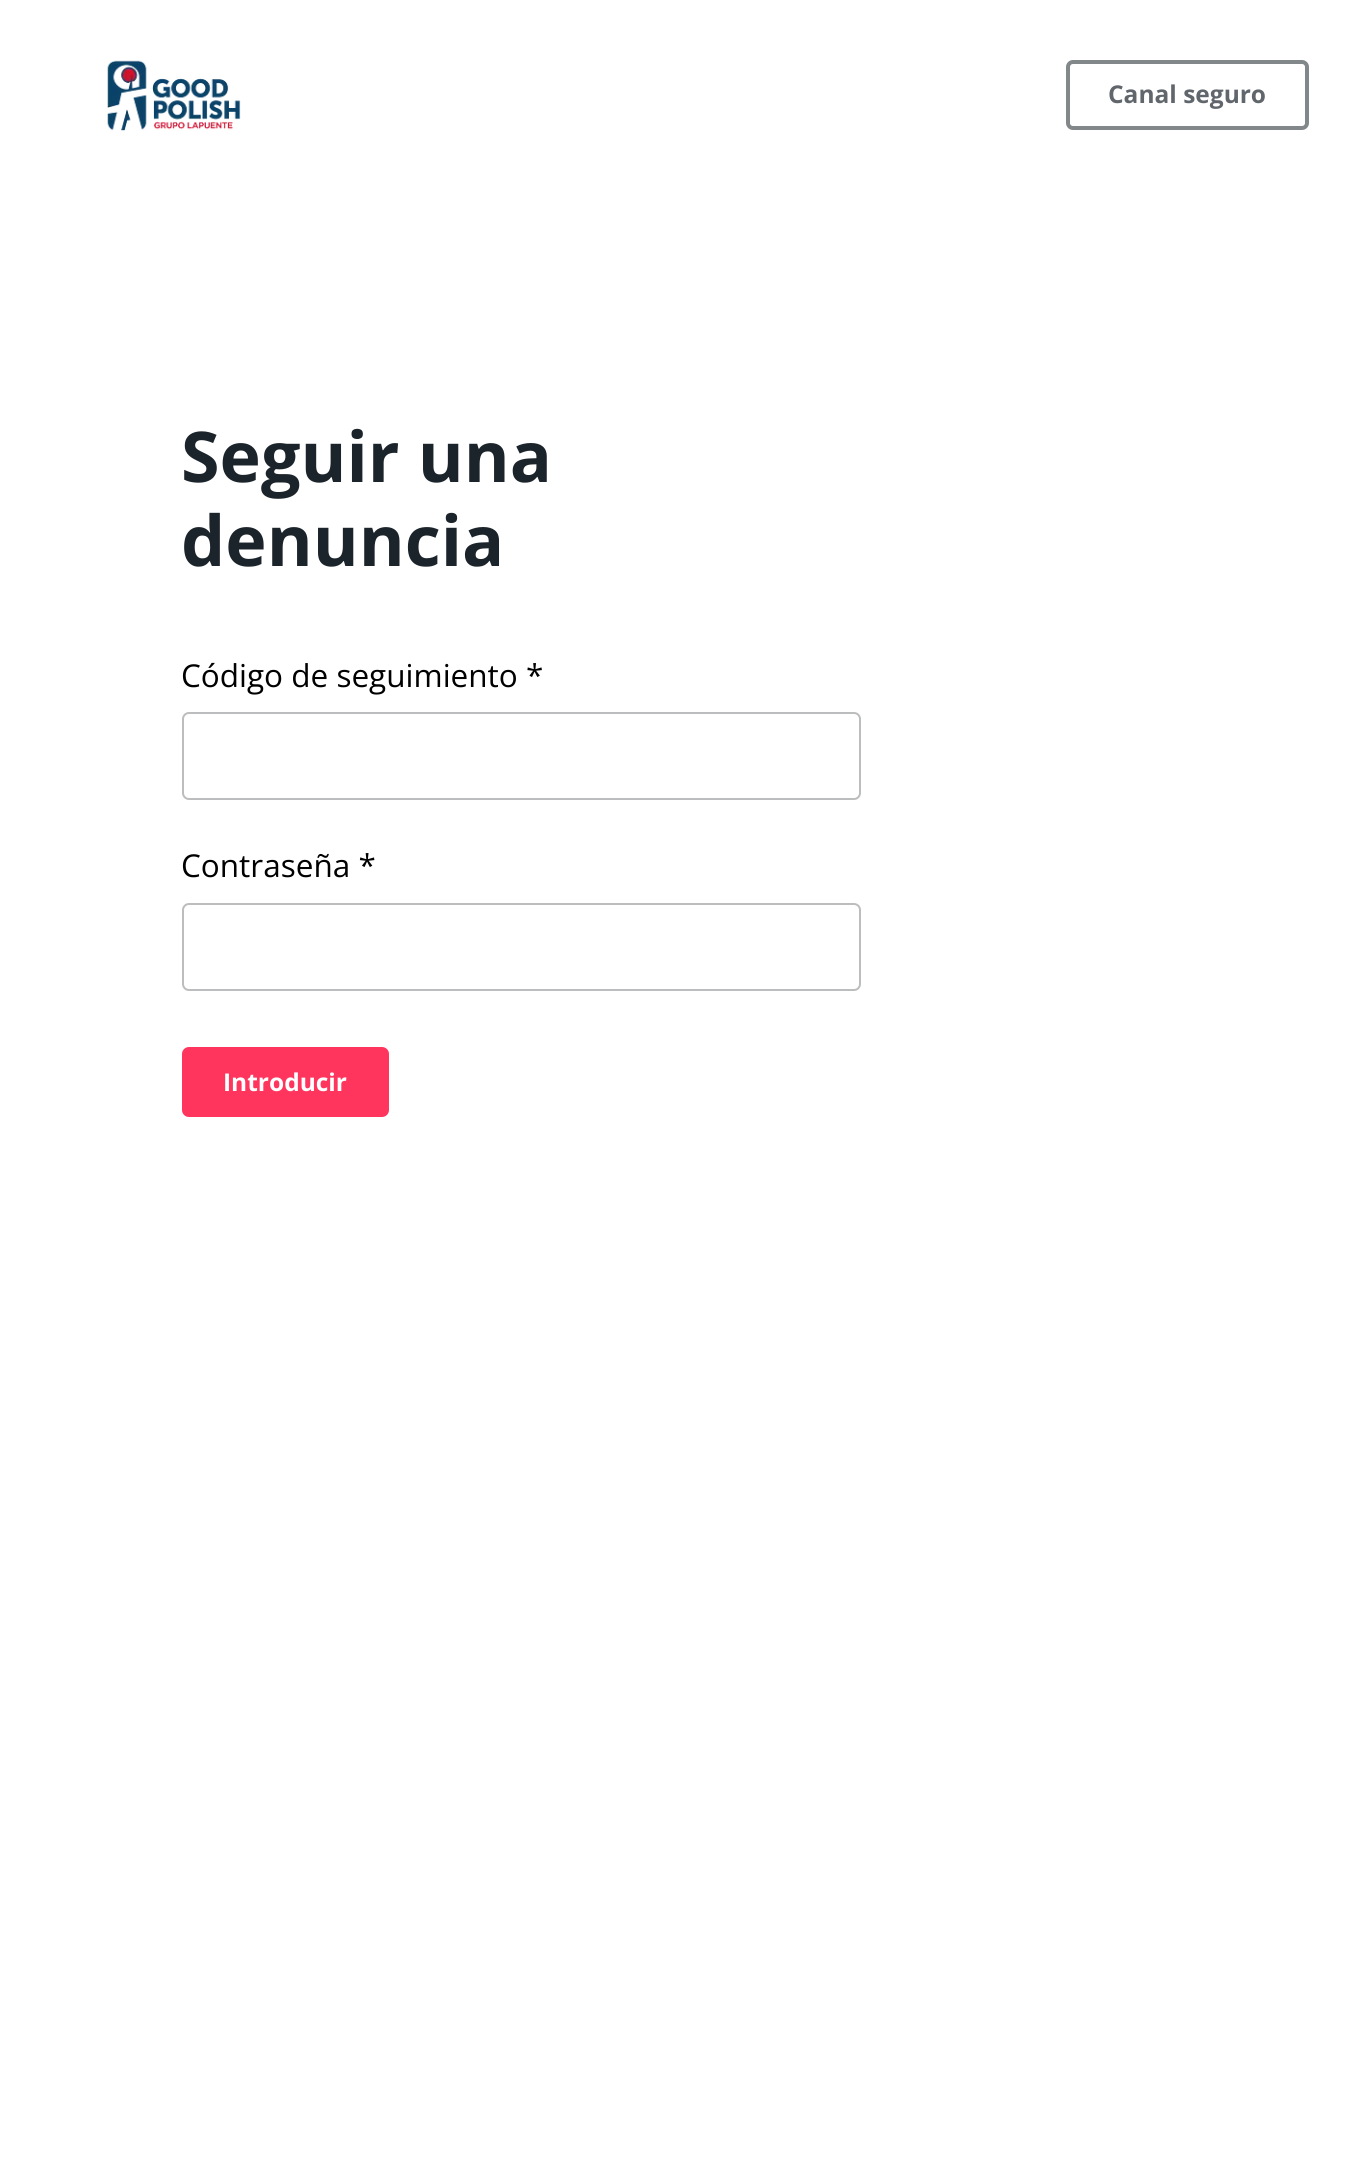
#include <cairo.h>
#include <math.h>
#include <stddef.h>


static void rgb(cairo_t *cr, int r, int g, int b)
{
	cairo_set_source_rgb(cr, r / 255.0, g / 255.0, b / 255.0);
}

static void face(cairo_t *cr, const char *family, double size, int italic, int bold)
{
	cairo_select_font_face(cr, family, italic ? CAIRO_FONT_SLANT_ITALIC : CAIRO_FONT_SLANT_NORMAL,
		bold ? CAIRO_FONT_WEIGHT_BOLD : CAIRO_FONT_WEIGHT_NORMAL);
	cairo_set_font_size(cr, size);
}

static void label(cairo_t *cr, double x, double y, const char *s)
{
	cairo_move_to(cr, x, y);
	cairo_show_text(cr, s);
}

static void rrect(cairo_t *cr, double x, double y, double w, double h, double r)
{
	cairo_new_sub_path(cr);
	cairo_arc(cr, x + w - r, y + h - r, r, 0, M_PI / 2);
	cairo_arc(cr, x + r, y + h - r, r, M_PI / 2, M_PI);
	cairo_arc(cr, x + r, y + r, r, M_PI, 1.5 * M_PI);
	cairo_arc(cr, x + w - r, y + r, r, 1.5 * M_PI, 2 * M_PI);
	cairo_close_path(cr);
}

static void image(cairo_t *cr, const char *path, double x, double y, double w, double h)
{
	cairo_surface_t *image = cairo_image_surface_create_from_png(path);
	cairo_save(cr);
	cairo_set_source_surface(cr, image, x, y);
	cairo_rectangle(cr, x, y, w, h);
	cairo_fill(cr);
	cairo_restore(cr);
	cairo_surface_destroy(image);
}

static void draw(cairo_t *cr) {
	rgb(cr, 255, 255, 255);
	cairo_paint(cr);
	image(cr, "image0.png", 107, 60, 134, 71);
	rrect(cr, 1068, 62, 239, 66, 5);
	rgb(cr, 130, 135, 138);
	cairo_set_line_width(cr, 4);
	cairo_stroke(cr);
	face(cr, "Open Sans", 24.5, 0, 1);
	rgb(cr, 96, 102, 107);
	label(cr, 1108, 103, "Canal seguro");
	face(cr, "Open Sans", 70, 0, 1);
	rgb(cr, 28, 36, 43);
	label(cr, 181, 482, "Seguir una");
	label(cr, 181, 566, "denuncia");
	face(cr, "Open Sans", 31.5, 0, 0);
	rgb(cr, 0, 0, 0);
	label(cr, 181, 687, "Código de seguimiento *");
	rrect(cr, 183, 713, 677, 86, 6);
	rgb(cr, 187, 189, 191);
	cairo_set_line_width(cr, 2);
	cairo_stroke(cr);
	rgb(cr, 0, 0, 0);
	label(cr, 181, 877, "Contraseña *");
	rrect(cr, 183, 904, 677, 86, 6);
	rgb(cr, 187, 189, 191);
	cairo_stroke(cr);
	rgb(cr, 255, 53, 94);
	rrect(cr, 182, 1047, 207, 70, 7);
	cairo_fill(cr);
	face(cr, "Open Sans", 24.5, 0, 1);
	rgb(cr, 255, 255, 255);
	label(cr, 223, 1091, "Introducir");
}

int main(void) {
	cairo_surface_t *surface = cairo_image_surface_create(CAIRO_FORMAT_RGB24, 1355, 2172);
	cairo_t *cr = cairo_create(surface);
	cairo_font_options_t *options = cairo_font_options_create();
	cairo_font_options_set_hint_metrics(options, CAIRO_HINT_METRICS_OFF);
	cairo_font_options_set_hint_style(options, CAIRO_HINT_STYLE_NONE);
	cairo_set_font_options(cr, options);
	cairo_set_miter_limit(cr, 4);
	draw(cr);
	cairo_surface_write_to_png(surface, "render.png");
	cairo_font_options_destroy(options);
	cairo_destroy(cr);
	cairo_surface_destroy(surface);
	return 0;
}
